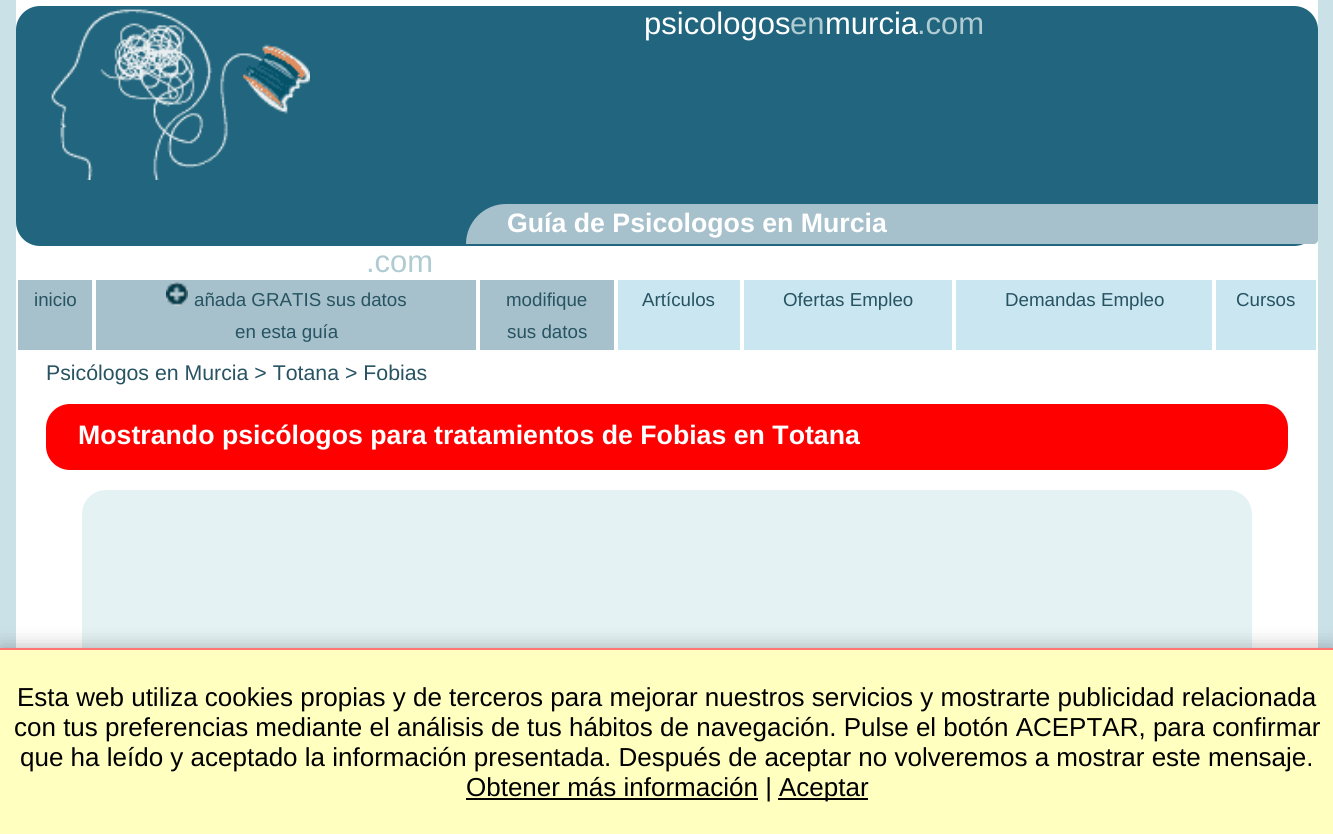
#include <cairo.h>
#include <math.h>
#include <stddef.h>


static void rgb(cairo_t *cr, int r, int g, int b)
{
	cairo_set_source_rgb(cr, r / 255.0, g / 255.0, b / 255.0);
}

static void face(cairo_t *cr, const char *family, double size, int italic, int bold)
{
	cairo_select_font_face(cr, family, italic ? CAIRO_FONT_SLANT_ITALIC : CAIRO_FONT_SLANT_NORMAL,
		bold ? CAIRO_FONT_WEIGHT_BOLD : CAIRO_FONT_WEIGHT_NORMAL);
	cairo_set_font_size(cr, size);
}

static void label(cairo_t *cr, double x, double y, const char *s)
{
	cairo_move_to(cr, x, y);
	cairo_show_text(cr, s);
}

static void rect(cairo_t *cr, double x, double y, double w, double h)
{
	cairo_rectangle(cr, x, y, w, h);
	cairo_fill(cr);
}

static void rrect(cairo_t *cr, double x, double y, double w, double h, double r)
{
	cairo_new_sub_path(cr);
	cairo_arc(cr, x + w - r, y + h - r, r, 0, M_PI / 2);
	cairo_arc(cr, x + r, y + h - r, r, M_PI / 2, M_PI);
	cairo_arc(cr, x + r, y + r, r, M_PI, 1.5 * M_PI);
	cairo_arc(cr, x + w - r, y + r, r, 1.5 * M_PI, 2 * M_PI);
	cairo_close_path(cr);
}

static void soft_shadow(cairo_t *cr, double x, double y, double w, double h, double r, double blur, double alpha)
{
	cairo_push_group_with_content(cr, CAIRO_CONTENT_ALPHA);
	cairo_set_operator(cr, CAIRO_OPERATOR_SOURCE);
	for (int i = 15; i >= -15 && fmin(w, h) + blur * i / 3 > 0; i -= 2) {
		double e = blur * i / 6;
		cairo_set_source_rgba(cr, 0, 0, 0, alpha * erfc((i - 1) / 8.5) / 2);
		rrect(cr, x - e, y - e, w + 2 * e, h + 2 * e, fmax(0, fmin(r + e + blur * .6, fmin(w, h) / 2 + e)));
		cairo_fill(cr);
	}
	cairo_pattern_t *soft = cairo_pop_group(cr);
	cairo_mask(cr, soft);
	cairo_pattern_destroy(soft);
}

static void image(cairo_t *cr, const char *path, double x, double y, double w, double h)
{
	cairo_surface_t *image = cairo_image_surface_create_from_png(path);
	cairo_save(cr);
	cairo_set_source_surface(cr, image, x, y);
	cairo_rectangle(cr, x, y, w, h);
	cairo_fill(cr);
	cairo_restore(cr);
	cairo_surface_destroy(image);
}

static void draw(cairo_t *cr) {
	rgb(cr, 203, 225, 232);
	cairo_paint(cr);
	rgb(cr, 255, 255, 255);
	rect(cr, 16, 0, 1302, 648);
	rgb(cr, 33, 102, 126);
	rrect(cr, 16, 6, 1302, 240, 24);
	cairo_fill(cr);
	image(cr, "image0.png", 51, 9, 259, 171);
	face(cr, "Liberation Sans", 31, 0, 0);
	rgb(cr, 255, 255, 255);
	label(cr, 644, 34, "psicologos");
	rgb(cr, 176, 203, 210);
	label(cr, 790, 34, "en");
	rgb(cr, 255, 255, 255);
	label(cr, 825, 34, "murcia");
	rgb(cr, 176, 203, 210);
	label(cr, 917, 34, ".com");
	rgb(cr, 166, 193, 203);
	cairo_new_path(cr);
	cairo_move_to(cr, 506, 204);
	cairo_line_to(cr, 1318, 204);
	cairo_line_to(cr, 1318, 240);
	cairo_curve_to(cr, 1318, 242, 1316, 244, 1314, 244);
	cairo_line_to(cr, 466, 244);
	cairo_curve_to(cr, 466, 222, 484, 204, 506, 204);
	cairo_close_path(cr);
	cairo_fill(cr);
	face(cr, "Liberation Sans", 26.7, 0, 1);
	rgb(cr, 255, 255, 255);
	label(cr, 507, 232, "Guía de Psicologos en Murcia");
	face(cr, "Liberation Sans", 31, 0, 0);
	rgb(cr, 176, 203, 210);
	label(cr, 366, 272, ".com");
	rgb(cr, 166, 193, 203);
	rect(cr, 18, 280, 74, 70);
	face(cr, "Liberation Sans", 18.75, 0, 0);
	rgb(cr, 39, 83, 98);
	label(cr, 34, 306, "inicio");
	rgb(cr, 166, 193, 203);
	rect(cr, 96, 280, 380, 70);
	image(cr, "image1.png", 166, 282, 22, 24);
	rgb(cr, 39, 83, 98);
	label(cr, 194, 306, "añada GRATIS sus datos");
	label(cr, 235, 338, "en esta guía");
	rgb(cr, 166, 193, 203);
	rect(cr, 480, 280, 134, 70);
	rgb(cr, 39, 83, 98);
	label(cr, 506, 306, "modifique");
	label(cr, 507, 338, "sus datos");
	rgb(cr, 201, 230, 241);
	rect(cr, 618, 280, 122, 70);
	rgb(cr, 39, 83, 98);
	label(cr, 642, 306, "Artículos");
	rgb(cr, 201, 230, 241);
	rect(cr, 744, 280, 208, 70);
	rgb(cr, 39, 83, 98);
	label(cr, 783, 306, "Ofertas Empleo");
	rgb(cr, 201, 230, 241);
	rect(cr, 956, 280, 256, 70);
	rgb(cr, 39, 83, 98);
	label(cr, 1005, 306, "Demandas Empleo");
	rgb(cr, 201, 230, 241);
	rect(cr, 1216, 280, 100, 70);
	rgb(cr, 39, 83, 98);
	label(cr, 1236, 306, "Cursos");
	face(cr, "Liberation Sans", 21.3, 0, 0);
	label(cr, 46, 380, "Psicólogos en Murcia > Totana > Fobias");
	rgb(cr, 255, 0, 0);
	rrect(cr, 47, 405, 1240, 64, 23);
	cairo_fill_preserve(cr);
	cairo_stroke(cr);
	face(cr, "Liberation Sans", 26.7, 0, 1);
	rgb(cr, 255, 255, 255);
	label(cr, 78, 444, "Mostrando psicólogos para tratamientos de Fobias en Totana");
	rgb(cr, 228, 242, 244);
	rrect(cr, 82, 490, 1170, 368, 24);
	cairo_fill(cr);
	rgb(cr, 0, 0, 0);
	soft_shadow(cr, 0, 648, 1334, 186, 0, 10, 0.3);
	rgb(cr, 255, 255, 191);
	rect(cr, 0, 650, 1333, 184);
	rgb(cr, 255, 115, 115);
	rect(cr, 0, 648, 1333, 2);
	face(cr, "Liberation Sans", 26, 0, 0);
	rgb(cr, 0, 0, 0);
	label(cr, 17, 706, "Esta web utiliza cookies propias y de terceros para mejorar nuestros servicios y mostrarte publicidad relacionada");
	label(cr, 14, 736, "con tus preferencias mediante el análisis de tus hábitos de navegación. Pulse el botón ACEPTAR, para confirmar");
	label(cr, 20, 766, "que ha leído y aceptado la información presentada. Después de aceptar no volveremos a mostrar este mensaje.");
	rect(cr, 466, 798, 292, 2);
	label(cr, 466, 796, "Obtener más información |");
	rect(cr, 778, 798, 90, 2);
	label(cr, 779, 796, "Aceptar");
}

int main(void) {
	cairo_surface_t *surface = cairo_image_surface_create(CAIRO_FORMAT_RGB24, 1333, 834);
	cairo_t *cr = cairo_create(surface);
	cairo_font_options_t *options = cairo_font_options_create();
	cairo_font_options_set_hint_metrics(options, CAIRO_HINT_METRICS_OFF);
	cairo_font_options_set_hint_style(options, CAIRO_HINT_STYLE_NONE);
	cairo_set_font_options(cr, options);
	cairo_set_miter_limit(cr, 4);
	draw(cr);
	cairo_surface_write_to_png(surface, "render.png");
	cairo_font_options_destroy(options);
	cairo_destroy(cr);
	cairo_surface_destroy(surface);
	return 0;
}
